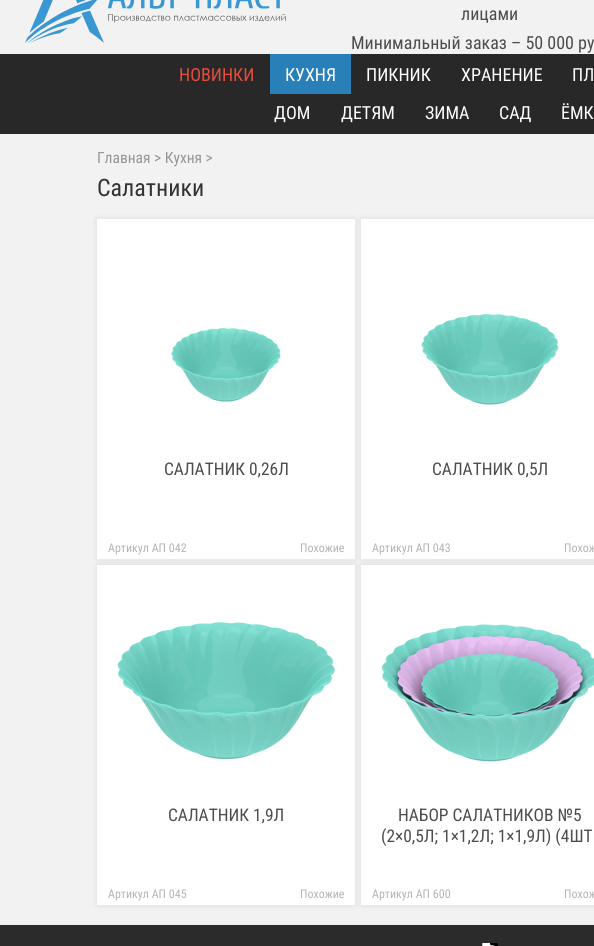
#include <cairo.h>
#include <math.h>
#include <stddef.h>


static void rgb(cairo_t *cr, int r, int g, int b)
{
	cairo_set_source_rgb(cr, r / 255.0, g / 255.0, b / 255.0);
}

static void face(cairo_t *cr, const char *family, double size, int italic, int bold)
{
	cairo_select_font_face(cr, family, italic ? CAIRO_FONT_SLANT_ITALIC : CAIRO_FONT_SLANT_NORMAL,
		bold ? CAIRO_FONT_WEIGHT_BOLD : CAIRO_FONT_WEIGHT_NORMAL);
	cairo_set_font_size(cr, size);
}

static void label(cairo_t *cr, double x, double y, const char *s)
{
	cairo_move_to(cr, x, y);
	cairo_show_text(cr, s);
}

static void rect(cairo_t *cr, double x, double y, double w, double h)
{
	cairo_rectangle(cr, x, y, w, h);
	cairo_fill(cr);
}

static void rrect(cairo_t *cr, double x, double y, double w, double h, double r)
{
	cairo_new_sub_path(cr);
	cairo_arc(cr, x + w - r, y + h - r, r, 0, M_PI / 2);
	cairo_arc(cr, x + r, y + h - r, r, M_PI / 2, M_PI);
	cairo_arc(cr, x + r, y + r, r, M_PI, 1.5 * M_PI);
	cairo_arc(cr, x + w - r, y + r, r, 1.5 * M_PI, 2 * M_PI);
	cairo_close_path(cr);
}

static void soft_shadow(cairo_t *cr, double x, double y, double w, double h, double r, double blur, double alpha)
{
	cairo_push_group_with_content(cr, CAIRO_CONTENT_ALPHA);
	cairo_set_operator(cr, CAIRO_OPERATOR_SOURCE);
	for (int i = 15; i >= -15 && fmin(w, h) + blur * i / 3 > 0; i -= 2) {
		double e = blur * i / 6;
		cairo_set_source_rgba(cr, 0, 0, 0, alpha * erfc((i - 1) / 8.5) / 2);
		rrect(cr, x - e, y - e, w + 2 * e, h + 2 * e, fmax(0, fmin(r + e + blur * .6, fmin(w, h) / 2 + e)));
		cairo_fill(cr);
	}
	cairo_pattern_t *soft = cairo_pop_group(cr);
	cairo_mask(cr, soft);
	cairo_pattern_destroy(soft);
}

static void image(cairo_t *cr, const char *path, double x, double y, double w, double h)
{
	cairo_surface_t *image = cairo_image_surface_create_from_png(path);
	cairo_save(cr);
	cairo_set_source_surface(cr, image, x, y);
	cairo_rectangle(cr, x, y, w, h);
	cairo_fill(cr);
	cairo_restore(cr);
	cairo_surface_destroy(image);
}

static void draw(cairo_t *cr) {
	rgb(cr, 242, 242, 242);
	cairo_paint(cr);
	image(cr, "image0.png", 25, 0, 261, 43);
	face(cr, "Roboto Condensed", 18, 0, 0);
	rgb(cr, 77, 77, 77);
	label(cr, 461, 20, "лицами");
	label(cr, 351, 49, "Минимальный заказ – 50 000 ру");
	rgb(cr, 40, 40, 40);
	rect(cr, 0, 54, 594, 80);
	rgb(cr, 231, 76, 60);
	label(cr, 179, 81, "НОВИНКИ");
	rgb(cr, 41, 128, 185);
	rect(cr, 270, 54, 81, 40);
	rgb(cr, 255, 255, 255);
	label(cr, 285, 81, "КУХНЯ");
	label(cr, 366, 81, "ПИКНИК");
	label(cr, 461, 81, "ХРАНЕНИЕ");
	label(cr, 572, 81, "ПЛ");
	label(cr, 274, 119, "ДОМ");
	label(cr, 341, 119, "ДЕТЯМ");
	label(cr, 425, 119, "ЗИМА");
	label(cr, 499, 119, "САД");
	label(cr, 561, 119, "ЁМК");
	face(cr, "Roboto Condensed", 15.5, 0, 0);
	rgb(cr, 150, 150, 150);
	label(cr, 97, 163, "Главная > Кухня >");
	face(cr, "Roboto Condensed", 24, 0, 0);
	rgb(cr, 51, 51, 51);
	label(cr, 97, 196, "Салатники");
	rgb(cr, 0, 0, 0);
	soft_shadow(cr, 97, 219, 258, 340, 0, 3, 0.1);
	rgb(cr, 255, 255, 255);
	rect(cr, 97, 219, 258, 340);
	image(cr, "image1.png", 171, 328, 110, 74);
	face(cr, "Roboto Condensed", 17.4, 0, 0);
	rgb(cr, 77, 77, 77);
	label(cr, 164, 475, "САЛАТНИК 0,26Л");
	face(cr, "Roboto Condensed", 12, 0, 0);
	rgb(cr, 180, 180, 180);
	label(cr, 108, 552, "Артикул АП 042");
	label(cr, 300, 552, "Похожие");
	rgb(cr, 0, 0, 0);
	soft_shadow(cr, 361, 219, 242, 340, 0, 3, 0.1);
	rgb(cr, 255, 255, 255);
	rect(cr, 361, 219, 233, 340);
	image(cr, "image2.png", 421, 314, 138, 91);
	face(cr, "Roboto Condensed", 17.4, 0, 0);
	rgb(cr, 77, 77, 77);
	label(cr, 432, 475, "САЛАТНИК 0,5Л");
	face(cr, "Roboto Condensed", 12, 0, 0);
	rgb(cr, 180, 180, 180);
	label(cr, 372, 552, "Артикул АП 043");
	label(cr, 564, 552, "Похож");
	rgb(cr, 0, 0, 0);
	soft_shadow(cr, 97, 565, 258, 340, 0, 3, 0.1);
	rgb(cr, 255, 255, 255);
	rect(cr, 97, 565, 258, 340);
	image(cr, "image3.png", 117, 622, 218, 138);
	face(cr, "Roboto Condensed", 17.4, 0, 0);
	rgb(cr, 77, 77, 77);
	label(cr, 168, 821, "САЛАТНИК 1,9Л");
	face(cr, "Roboto Condensed", 12, 0, 0);
	rgb(cr, 180, 180, 180);
	label(cr, 108, 898, "Артикул АП 045");
	label(cr, 300, 898, "Похожие");
	rgb(cr, 0, 0, 0);
	soft_shadow(cr, 361, 565, 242, 340, 0, 3, 0.1);
	rgb(cr, 255, 255, 255);
	rect(cr, 361, 565, 233, 340);
	image(cr, "image4.png", 381, 624, 213, 138);
	face(cr, "Roboto Condensed", 17.4, 0, 0);
	rgb(cr, 77, 77, 77);
	label(cr, 398, 821, "НАБОР САЛАТНИКОВ №5");
	label(cr, 381, 842, "(2×0,5Л; 1×1,2Л; 1×1,9Л) (4ШТ");
	face(cr, "Roboto Condensed", 12, 0, 0);
	rgb(cr, 180, 180, 180);
	label(cr, 372, 898, "Артикул АП 600");
	label(cr, 564, 898, "Похож");
	rgb(cr, 43, 43, 43);
	rect(cr, 0, 925, 594, 21);
	image(cr, "image5.png", 482, 943, 16, 3);
}

int main(void) {
	cairo_surface_t *surface = cairo_image_surface_create(CAIRO_FORMAT_RGB24, 594, 946);
	cairo_t *cr = cairo_create(surface);
	cairo_font_options_t *options = cairo_font_options_create();
	cairo_font_options_set_hint_metrics(options, CAIRO_HINT_METRICS_OFF);
	cairo_font_options_set_hint_style(options, CAIRO_HINT_STYLE_NONE);
	cairo_set_font_options(cr, options);
	cairo_set_miter_limit(cr, 4);
	draw(cr);
	cairo_surface_write_to_png(surface, "render.png");
	cairo_font_options_destroy(options);
	cairo_destroy(cr);
	cairo_surface_destroy(surface);
	return 0;
}
